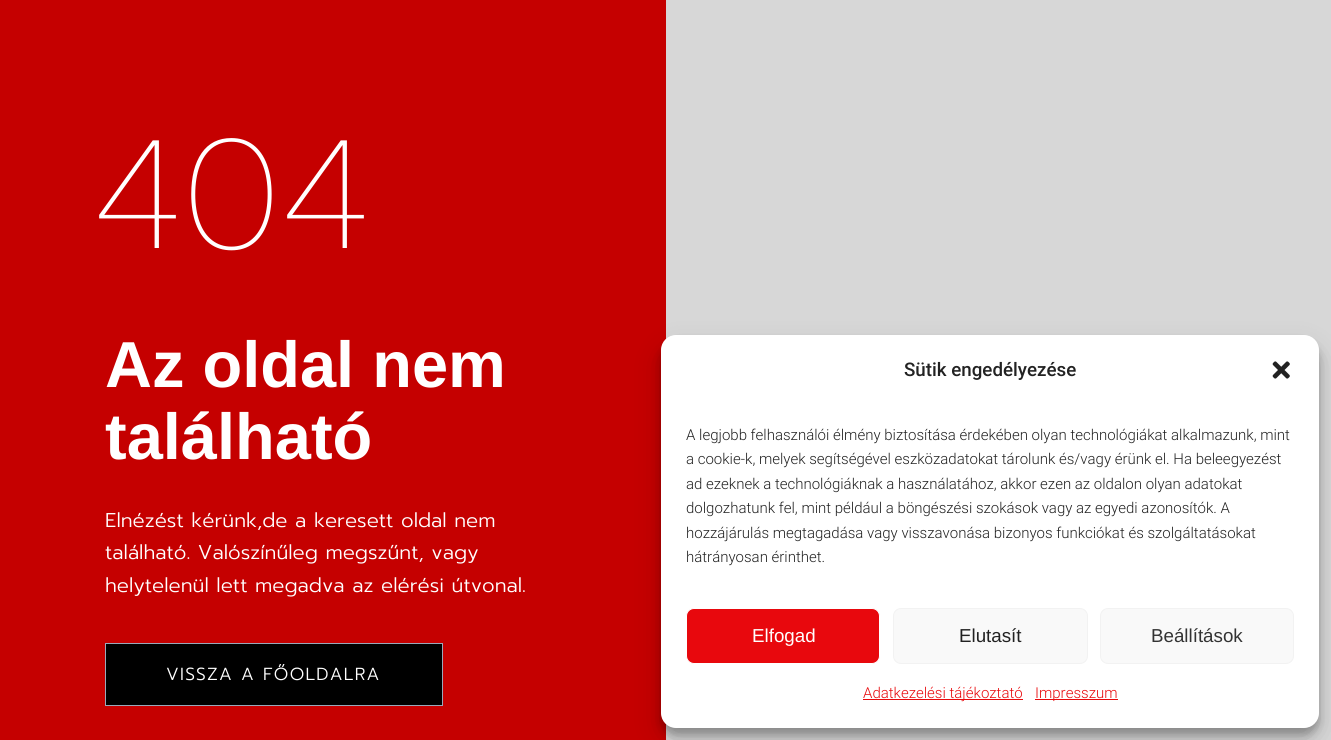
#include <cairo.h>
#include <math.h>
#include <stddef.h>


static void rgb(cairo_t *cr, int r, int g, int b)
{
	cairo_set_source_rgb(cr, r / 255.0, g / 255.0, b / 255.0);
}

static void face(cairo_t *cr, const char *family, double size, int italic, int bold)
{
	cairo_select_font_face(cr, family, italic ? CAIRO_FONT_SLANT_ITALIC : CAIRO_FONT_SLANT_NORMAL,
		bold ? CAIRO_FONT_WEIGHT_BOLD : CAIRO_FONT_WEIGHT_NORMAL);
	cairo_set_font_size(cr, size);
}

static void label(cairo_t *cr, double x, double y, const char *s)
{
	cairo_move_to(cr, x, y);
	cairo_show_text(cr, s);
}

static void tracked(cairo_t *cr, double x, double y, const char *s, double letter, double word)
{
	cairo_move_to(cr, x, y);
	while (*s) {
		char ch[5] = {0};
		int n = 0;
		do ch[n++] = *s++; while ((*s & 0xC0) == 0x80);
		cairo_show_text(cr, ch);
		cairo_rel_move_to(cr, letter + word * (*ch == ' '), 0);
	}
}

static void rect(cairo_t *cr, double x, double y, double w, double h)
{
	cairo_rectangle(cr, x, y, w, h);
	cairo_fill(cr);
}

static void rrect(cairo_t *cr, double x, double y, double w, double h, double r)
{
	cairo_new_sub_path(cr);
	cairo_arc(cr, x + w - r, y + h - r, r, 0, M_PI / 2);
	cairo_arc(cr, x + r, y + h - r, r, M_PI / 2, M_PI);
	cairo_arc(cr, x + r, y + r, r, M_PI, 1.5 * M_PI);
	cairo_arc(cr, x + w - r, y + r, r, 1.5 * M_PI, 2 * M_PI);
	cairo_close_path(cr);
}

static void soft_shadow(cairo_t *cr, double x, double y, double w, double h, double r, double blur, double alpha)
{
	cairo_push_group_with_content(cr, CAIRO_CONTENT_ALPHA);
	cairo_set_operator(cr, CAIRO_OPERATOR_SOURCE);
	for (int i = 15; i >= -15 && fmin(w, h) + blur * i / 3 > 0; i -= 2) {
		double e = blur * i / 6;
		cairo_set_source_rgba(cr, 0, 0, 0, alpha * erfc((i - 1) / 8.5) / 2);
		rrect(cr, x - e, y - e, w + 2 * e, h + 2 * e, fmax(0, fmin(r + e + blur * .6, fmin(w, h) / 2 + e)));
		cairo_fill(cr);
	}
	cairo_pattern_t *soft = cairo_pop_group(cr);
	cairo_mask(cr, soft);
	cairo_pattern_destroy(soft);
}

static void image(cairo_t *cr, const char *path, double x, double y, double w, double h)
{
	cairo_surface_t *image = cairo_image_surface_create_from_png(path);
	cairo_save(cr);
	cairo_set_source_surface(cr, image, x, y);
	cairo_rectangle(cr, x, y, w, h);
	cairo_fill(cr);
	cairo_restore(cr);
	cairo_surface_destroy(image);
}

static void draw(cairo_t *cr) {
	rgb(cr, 197, 0, 0);
	cairo_paint(cr);
	face(cr, "Prompt ExtraLight", 154, 0, 0);
	rgb(cr, 255, 255, 255);
	label(cr, 93, 248, "404");
	face(cr, "Liberation Sans", 65, 0, 1);
	label(cr, 105, 387, "Az oldal nem");
	label(cr, 105, 459, "található");
	face(cr, "Prompt Light", 20, 0, 0);
	label(cr, 105, 527, "Elnézést kérünk,de a keresett oldal nem");
	label(cr, 105, 559, "található. Valószínűleg megszűnt, vagy");
	label(cr, 105, 592, "helytelenül lett megadva az elérési útvonal.");
	rgb(cr, 0, 0, 0);
	cairo_rectangle(cr, 105.5, 643.5, 337, 62);
	cairo_fill_preserve(cr);
	rgb(cr, 154, 168, 186);
	cairo_set_line_width(cr, 1);
	cairo_stroke(cr);
	face(cr, "Prompt Light", 17.5, 0, 0);
	rgb(cr, 255, 255, 255);
	tracked(cr, 166, 680, "VISSZA A FŐOLDALRA", 1.25, 0);
	rgb(cr, 215, 215, 215);
	rect(cr, 666, 0, 665, 740);
	rgb(cr, 0, 0, 0);
	soft_shadow(cr, 661, 343, 658, 392, 15, 4, 0.23);
	soft_shadow(cr, 661, 348, 658, 392, 15, 12.5, 0.19);
	rgb(cr, 255, 255, 255);
	rrect(cr, 661, 335, 658, 393, 15);
	cairo_fill(cr);
	face(cr, "Roboto Medium", 18.75, 0, 0);
	rgb(cr, 34, 34, 34);
	label(cr, 904, 376, "Sütik engedélyezése");
	image(cr, "image0.png", 1272, 361, 18, 18);
	face(cr, "Roboto Light", 15, 0, 0);
	label(cr, 686, 440, "A legjobb felhasználói élmény biztosítása érdekében olyan technológiákat alkalmazunk, mint");
	label(cr, 686, 464, "a cookie-k, melyek segítségével eszközadatokat tárolunk és/vagy érünk el. Ha beleegyezést");
	label(cr, 686, 489, "ad ezeknek a technológiáknak a használatához, akkor ezen az oldalon olyan adatokat");
	label(cr, 686, 513, "dolgozhatunk fel, mint például a böngészési szokások vagy az egyedi azonosítók. A");
	label(cr, 686, 538, "hozzájárulás megtagadása vagy visszavonása bizonyos funkciókat és szolgáltatásokat");
	label(cr, 686, 562, "hátrányosan érinthet.");
	rgb(cr, 232, 8, 13);
	rrect(cr, 686.5, 608.5, 193, 55, 7.5);
	cairo_fill_preserve(cr);
	rgb(cr, 255, 255, 255);
	cairo_stroke(cr);
	face(cr, "Liberation Sans", 18.75, 0, 0);
	label(cr, 752, 642, "Elfogad");
	rgb(cr, 249, 249, 249);
	rrect(cr, 893.5, 608.5, 194, 55, 7.5);
	cairo_fill_preserve(cr);
	rgb(cr, 242, 242, 242);
	cairo_stroke(cr);
	rgb(cr, 34, 34, 34);
	label(cr, 959, 642, "Elutasít");
	rgb(cr, 249, 249, 249);
	rrect(cr, 1100.5, 608.5, 193, 55, 7.5);
	cairo_fill_preserve(cr);
	rgb(cr, 242, 242, 242);
	cairo_stroke(cr);
	rgb(cr, 51, 51, 51);
	label(cr, 1151, 642, "Beállítások");
	rgb(cr, 232, 9, 12);
	rect(cr, 863, 699, 160, 1);
	face(cr, "Roboto Light", 15, 0, 0);
	label(cr, 863, 698, "Adatkezelési tájékoztató");
	rect(cr, 1035, 699, 83, 1);
	label(cr, 1035, 698, "Impresszum");
}

int main(void) {
	cairo_surface_t *surface = cairo_image_surface_create(CAIRO_FORMAT_RGB24, 1331, 740);
	cairo_t *cr = cairo_create(surface);
	cairo_font_options_t *options = cairo_font_options_create();
	cairo_font_options_set_hint_metrics(options, CAIRO_HINT_METRICS_OFF);
	cairo_font_options_set_hint_style(options, CAIRO_HINT_STYLE_NONE);
	cairo_set_font_options(cr, options);
	cairo_set_miter_limit(cr, 4);
	draw(cr);
	cairo_surface_write_to_png(surface, "render.png");
	cairo_font_options_destroy(options);
	cairo_destroy(cr);
	cairo_surface_destroy(surface);
	return 0;
}
